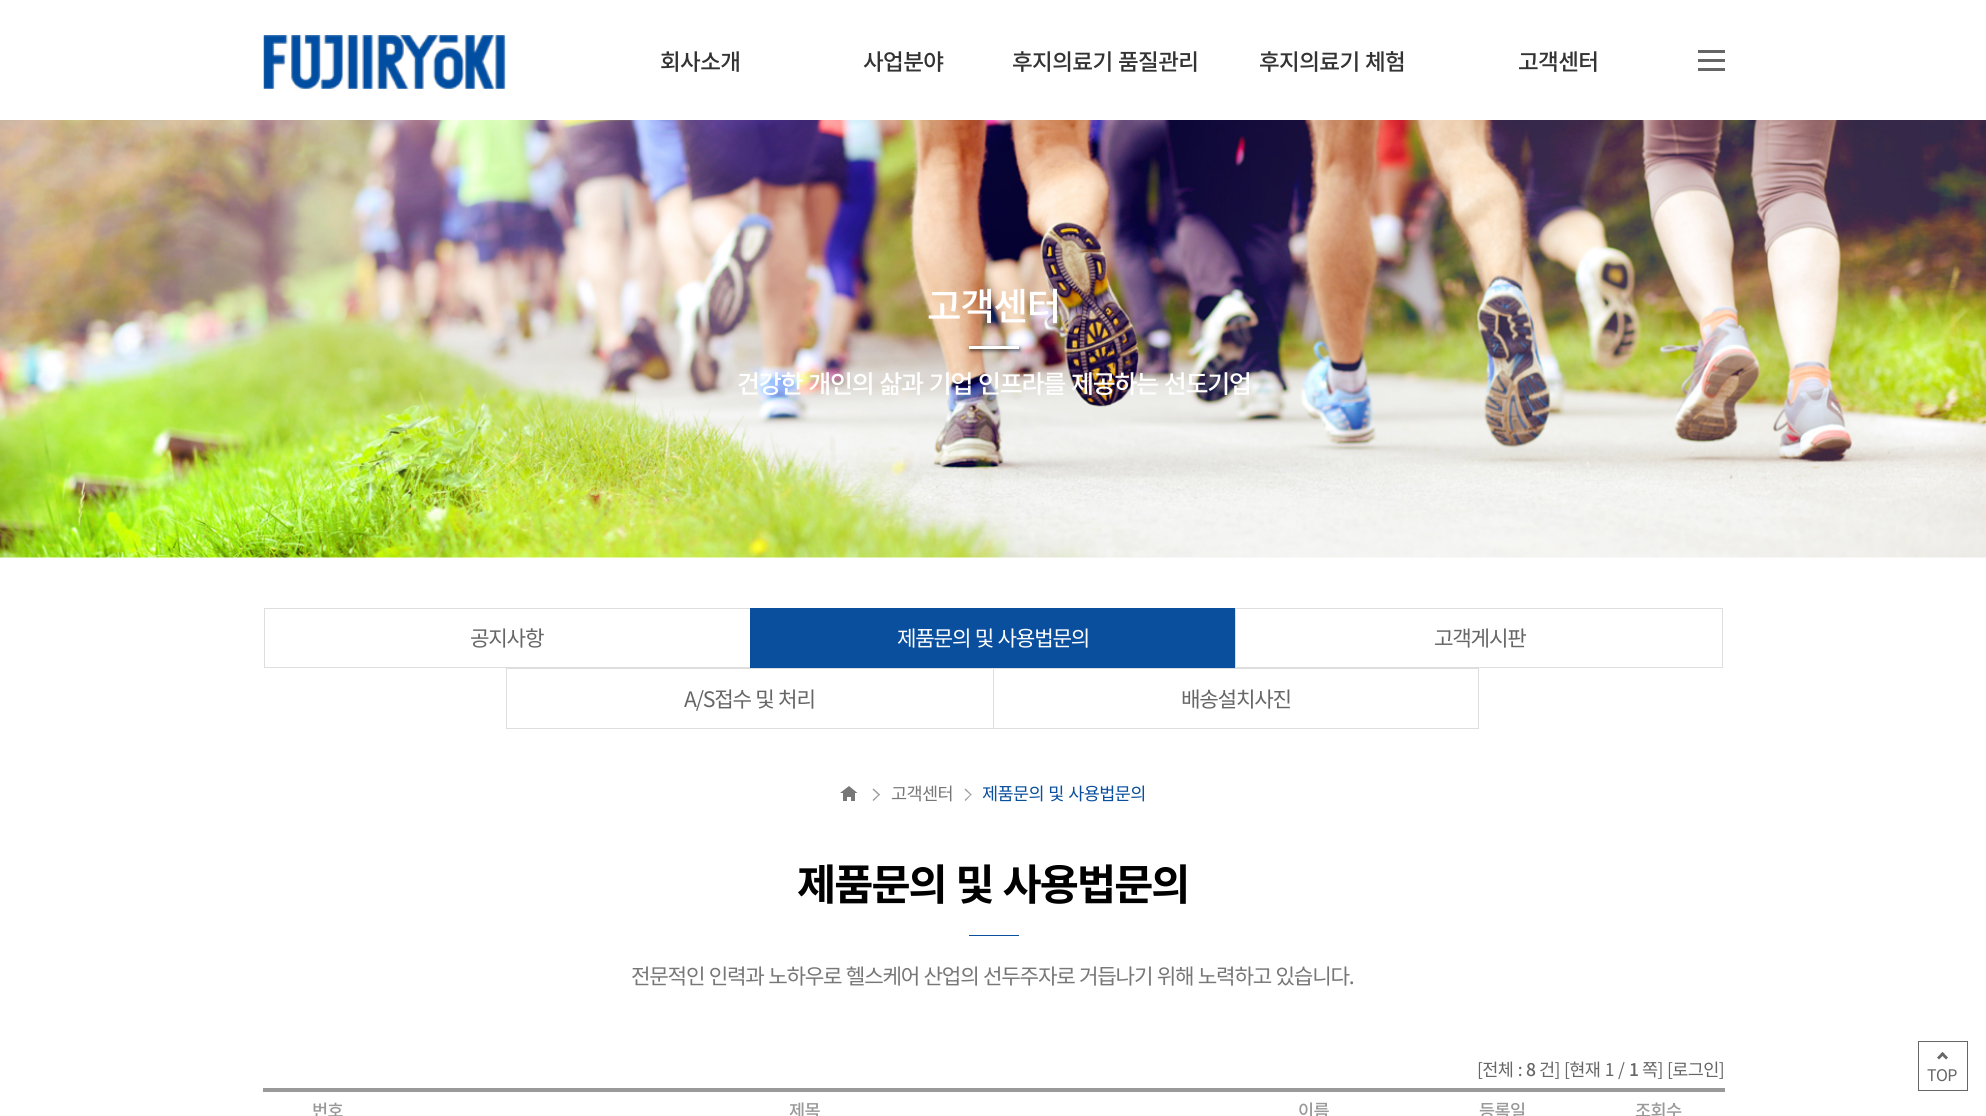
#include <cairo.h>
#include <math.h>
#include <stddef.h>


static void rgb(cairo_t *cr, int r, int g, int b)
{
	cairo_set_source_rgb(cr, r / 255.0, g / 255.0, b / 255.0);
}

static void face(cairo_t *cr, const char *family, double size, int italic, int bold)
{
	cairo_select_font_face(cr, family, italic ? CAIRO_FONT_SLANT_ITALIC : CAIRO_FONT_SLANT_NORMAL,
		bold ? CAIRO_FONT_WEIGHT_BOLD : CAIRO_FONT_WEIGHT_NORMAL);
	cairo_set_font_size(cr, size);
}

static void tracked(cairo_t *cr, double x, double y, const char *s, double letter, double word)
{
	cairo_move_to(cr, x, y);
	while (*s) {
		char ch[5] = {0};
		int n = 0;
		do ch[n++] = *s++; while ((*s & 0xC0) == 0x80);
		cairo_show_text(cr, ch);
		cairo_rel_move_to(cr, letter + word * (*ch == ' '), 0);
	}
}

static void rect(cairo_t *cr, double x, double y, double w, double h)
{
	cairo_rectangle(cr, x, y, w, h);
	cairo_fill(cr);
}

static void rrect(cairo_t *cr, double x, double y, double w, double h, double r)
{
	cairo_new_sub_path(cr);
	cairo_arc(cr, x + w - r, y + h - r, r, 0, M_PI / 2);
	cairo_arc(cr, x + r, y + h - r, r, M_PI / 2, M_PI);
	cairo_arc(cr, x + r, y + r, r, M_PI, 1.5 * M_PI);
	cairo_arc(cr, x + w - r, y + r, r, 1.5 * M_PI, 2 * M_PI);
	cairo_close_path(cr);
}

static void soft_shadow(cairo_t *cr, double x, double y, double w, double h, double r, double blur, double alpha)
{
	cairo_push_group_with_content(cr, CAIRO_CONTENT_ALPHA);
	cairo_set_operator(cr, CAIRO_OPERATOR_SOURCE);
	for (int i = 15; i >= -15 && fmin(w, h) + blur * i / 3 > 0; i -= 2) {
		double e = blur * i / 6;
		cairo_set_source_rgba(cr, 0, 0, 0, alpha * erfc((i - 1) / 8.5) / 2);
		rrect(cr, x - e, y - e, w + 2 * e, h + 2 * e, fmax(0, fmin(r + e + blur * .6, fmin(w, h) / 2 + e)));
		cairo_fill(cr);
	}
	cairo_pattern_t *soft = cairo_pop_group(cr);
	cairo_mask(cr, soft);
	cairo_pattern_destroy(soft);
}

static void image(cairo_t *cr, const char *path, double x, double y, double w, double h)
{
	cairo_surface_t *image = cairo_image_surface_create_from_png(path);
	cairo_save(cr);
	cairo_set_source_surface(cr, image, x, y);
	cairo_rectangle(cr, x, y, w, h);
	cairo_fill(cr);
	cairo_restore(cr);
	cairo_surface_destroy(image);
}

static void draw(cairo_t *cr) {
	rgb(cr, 255, 255, 255);
	cairo_paint(cr);
	image(cr, "image0.png", 263, 35, 243, 54);
	face(cr, "Noto Sans KR Medium", 22.5, 0, 0);
	rgb(cr, 51, 51, 51);
	tracked(cr, 660, 70, "회사소개", -0.6, 0);
	tracked(cr, 863, 70, "사업분야", -0.6, 0);
	tracked(cr, 1012, 70, "후지의료기 품질관리", -0.6, 1);
	tracked(cr, 1259, 70, "후지의료기 체험", -0.6, 1);
	tracked(cr, 1518, 70, "고객센터", -0.6, 0);
	rgb(cr, 102, 102, 102);
	rect(cr, 1698, 50, 27, 3);
	rect(cr, 1698, 59, 27, 3);
	rect(cr, 1698, 68, 27, 3);
	image(cr, "image1.png", 0, 120, 1986, 438);
	face(cr, "Noto Sans KR Medium", 37.5, 0, 0);
	rgb(cr, 255, 255, 255);
	tracked(cr, 927, 320, "고객센터", -1.25, 0);
	rgb(cr, 0, 0, 0);
	soft_shadow(cr, 970, 348, 50, 3, 0, 2, 0.6);
	rgb(cr, 255, 255, 255);
	rect(cr, 969, 346, 50, 3);
	face(cr, "Noto Sans KR Medium", 25, 0, 0);
	tracked(cr, 737, 393, "건강한 개인의 삶과 기업 인프라를 제공하는 선도기업", -1.25, 1.5);
	cairo_rectangle(cr, 264.5, 608.5, 486, 59);
	rgb(cr, 222, 222, 222);
	cairo_set_line_width(cr, 1);
	cairo_stroke(cr);
	face(cr, "Noto Sans KR", 21.25, 0, 0);
	rgb(cr, 102, 102, 102);
	tracked(cr, 470, 646, "공지사항", -1.25, 0);
	rgb(cr, 9, 79, 157);
	rect(cr, 750, 608, 485, 60);
	rgb(cr, 255, 255, 255);
	tracked(cr, 897, 646, "제품문의 및 사용법문의", -1.25, 1);
	cairo_rectangle(cr, 1235.5, 608.5, 487, 59);
	rgb(cr, 222, 222, 222);
	cairo_stroke(cr);
	rgb(cr, 102, 102, 102);
	tracked(cr, 1434, 646, "고객게시판", -1.25, 0);
	cairo_rectangle(cr, 506.5, 668.5, 487, 60);
	rgb(cr, 222, 222, 222);
	cairo_stroke(cr);
	rgb(cr, 102, 102, 102);
	tracked(cr, 684, 707, "A/S접수 및 처리", -1.25, 1);
	cairo_rectangle(cr, 993.5, 668.5, 485, 60);
	rgb(cr, 222, 222, 222);
	cairo_stroke(cr);
	rgb(cr, 102, 102, 102);
	tracked(cr, 1181, 707, "배송설치사진", -1.25, 0);
	rgb(cr, 119, 119, 119);
	cairo_new_path(cr);
	cairo_move_to(cr, 857.5, 793);
	cairo_line_to(cr, 840, 793);
	cairo_line_to(cr, 849, 786);
	cairo_close_path(cr);
	cairo_fill(cr);
	rect(cr, 843, 793, 12, 4);
	rect(cr, 851, 793, 4, 8);
	rect(cr, 843, 793, 4, 8);
	rgb(cr, 153, 153, 153);
	cairo_new_path(cr);
	cairo_move_to(cr, 872.5, 789.5);
	cairo_line_to(cr, 873.5, 788.5);
	cairo_line_to(cr, 880, 794.5);
	cairo_line_to(cr, 879, 795.5);
	cairo_close_path(cr);
	cairo_fill(cr);
	cairo_new_path(cr);
	cairo_move_to(cr, 872.5, 800);
	cairo_line_to(cr, 879, 794);
	cairo_line_to(cr, 880, 794.5);
	cairo_line_to(cr, 873.5, 801);
	cairo_close_path(cr);
	cairo_fill(cr);
	face(cr, "Noto Sans KR", 17.5, 0, 0);
	rgb(cr, 119, 119, 119);
	tracked(cr, 891, 800, "고객센터", -0.6, 0);
	rgb(cr, 153, 153, 153);
	cairo_new_path(cr);
	cairo_move_to(cr, 964.5, 789.5);
	cairo_line_to(cr, 965.5, 788.5);
	cairo_line_to(cr, 971.5, 794.5);
	cairo_line_to(cr, 971, 795.5);
	cairo_close_path(cr);
	cairo_fill(cr);
	cairo_new_path(cr);
	cairo_move_to(cr, 964.5, 800);
	cairo_line_to(cr, 971, 794);
	cairo_line_to(cr, 971.5, 794.5);
	cairo_line_to(cr, 965.5, 801);
	cairo_close_path(cr);
	cairo_fill(cr);
	rgb(cr, 9, 79, 157);
	tracked(cr, 982, 800, "제품문의 및 사용법문의", -0.6, 1);
	face(cr, "Noto Sans KR", 42.5, 0, 1);
	rgb(cr, 0, 0, 0);
	tracked(cr, 797, 900, "제품문의 및 사용법문의", -1.9, 2);
	rgb(cr, 9, 79, 157);
	rect(cr, 969, 935, 50, 1);
	face(cr, "Noto Sans KR", 21.25, 0, 0);
	rgb(cr, 119, 119, 119);
	tracked(cr, 631, 984, "전문적인 인력과 노하우로 헬스케어 산업의 선두주자로 거듭나기 위해 노력하고 있습니다.", -1.25, 1);
	face(cr, "Noto Sans KR", 17.5, 0, 0);
	rgb(cr, 102, 102, 102);
	tracked(cr, 1477, 1076, "[전체 :", -0.6, 1);
	face(cr, "Noto Sans KR Medium", 17.5, 0, 0);
	tracked(cr, 1526, 1076, "8", -0.6, 0);
	face(cr, "Noto Sans KR", 17.5, 0, 0);
	tracked(cr, 1539, 1076, "건]", -0.6, 0);
	tracked(cr, 1564, 1076, "[현재 1 /", -0.6, 1);
	face(cr, "Noto Sans KR Medium", 17.5, 0, 0);
	tracked(cr, 1629, 1076, "1", -0.6, 0);
	face(cr, "Noto Sans KR", 17.5, 0, 0);
	tracked(cr, 1642, 1076, "쪽]", -0.6, 0);
	tracked(cr, 1667, 1076, "[로그인]", -0.6, 0);
	rgb(cr, 153, 153, 153);
	rect(cr, 263, 1088, 1462, 4);
	face(cr, "Noto Sans KR Medium", 17.5, 0, 0);
	tracked(cr, 312, 1117, "번호", -0.6, 0);
	tracked(cr, 789, 1117, "제목", -0.6, 0);
	tracked(cr, 1298, 1117, "이름", -0.6, 0);
	tracked(cr, 1479, 1117, "등록일", -0.6, 0);
	tracked(cr, 1635, 1117, "조회수", -0.6, 0);
	cairo_rectangle(cr, 1918.5, 1041.5, 49, 49);
	rgb(cr, 102, 102, 102);
	cairo_stroke(cr);
	cairo_new_path(cr);
	cairo_move_to(cr, 1937, 1057.5);
	cairo_line_to(cr, 1942.5, 1052);
	cairo_line_to(cr, 1944.5, 1054);
	cairo_line_to(cr, 1939, 1059.5);
	cairo_close_path(cr);
	cairo_fill(cr);
	cairo_new_path(cr);
	cairo_move_to(cr, 1940.5, 1054);
	cairo_line_to(cr, 1942.5, 1052);
	cairo_line_to(cr, 1948, 1057.5);
	cairo_line_to(cr, 1946, 1059.5);
	cairo_close_path(cr);
	cairo_fill(cr);
	face(cr, "Noto Sans KR", 16, 0, 0);
	tracked(cr, 1927, 1081, "TOP", -0.6, 0);
}

int main(void) {
	cairo_surface_t *surface = cairo_image_surface_create(CAIRO_FORMAT_RGB24, 1986, 1116);
	cairo_t *cr = cairo_create(surface);
	cairo_font_options_t *options = cairo_font_options_create();
	cairo_font_options_set_hint_metrics(options, CAIRO_HINT_METRICS_OFF);
	cairo_font_options_set_hint_style(options, CAIRO_HINT_STYLE_NONE);
	cairo_set_font_options(cr, options);
	cairo_set_miter_limit(cr, 4);
	draw(cr);
	cairo_surface_write_to_png(surface, "render.png");
	cairo_font_options_destroy(options);
	cairo_destroy(cr);
	cairo_surface_destroy(surface);
	return 0;
}
